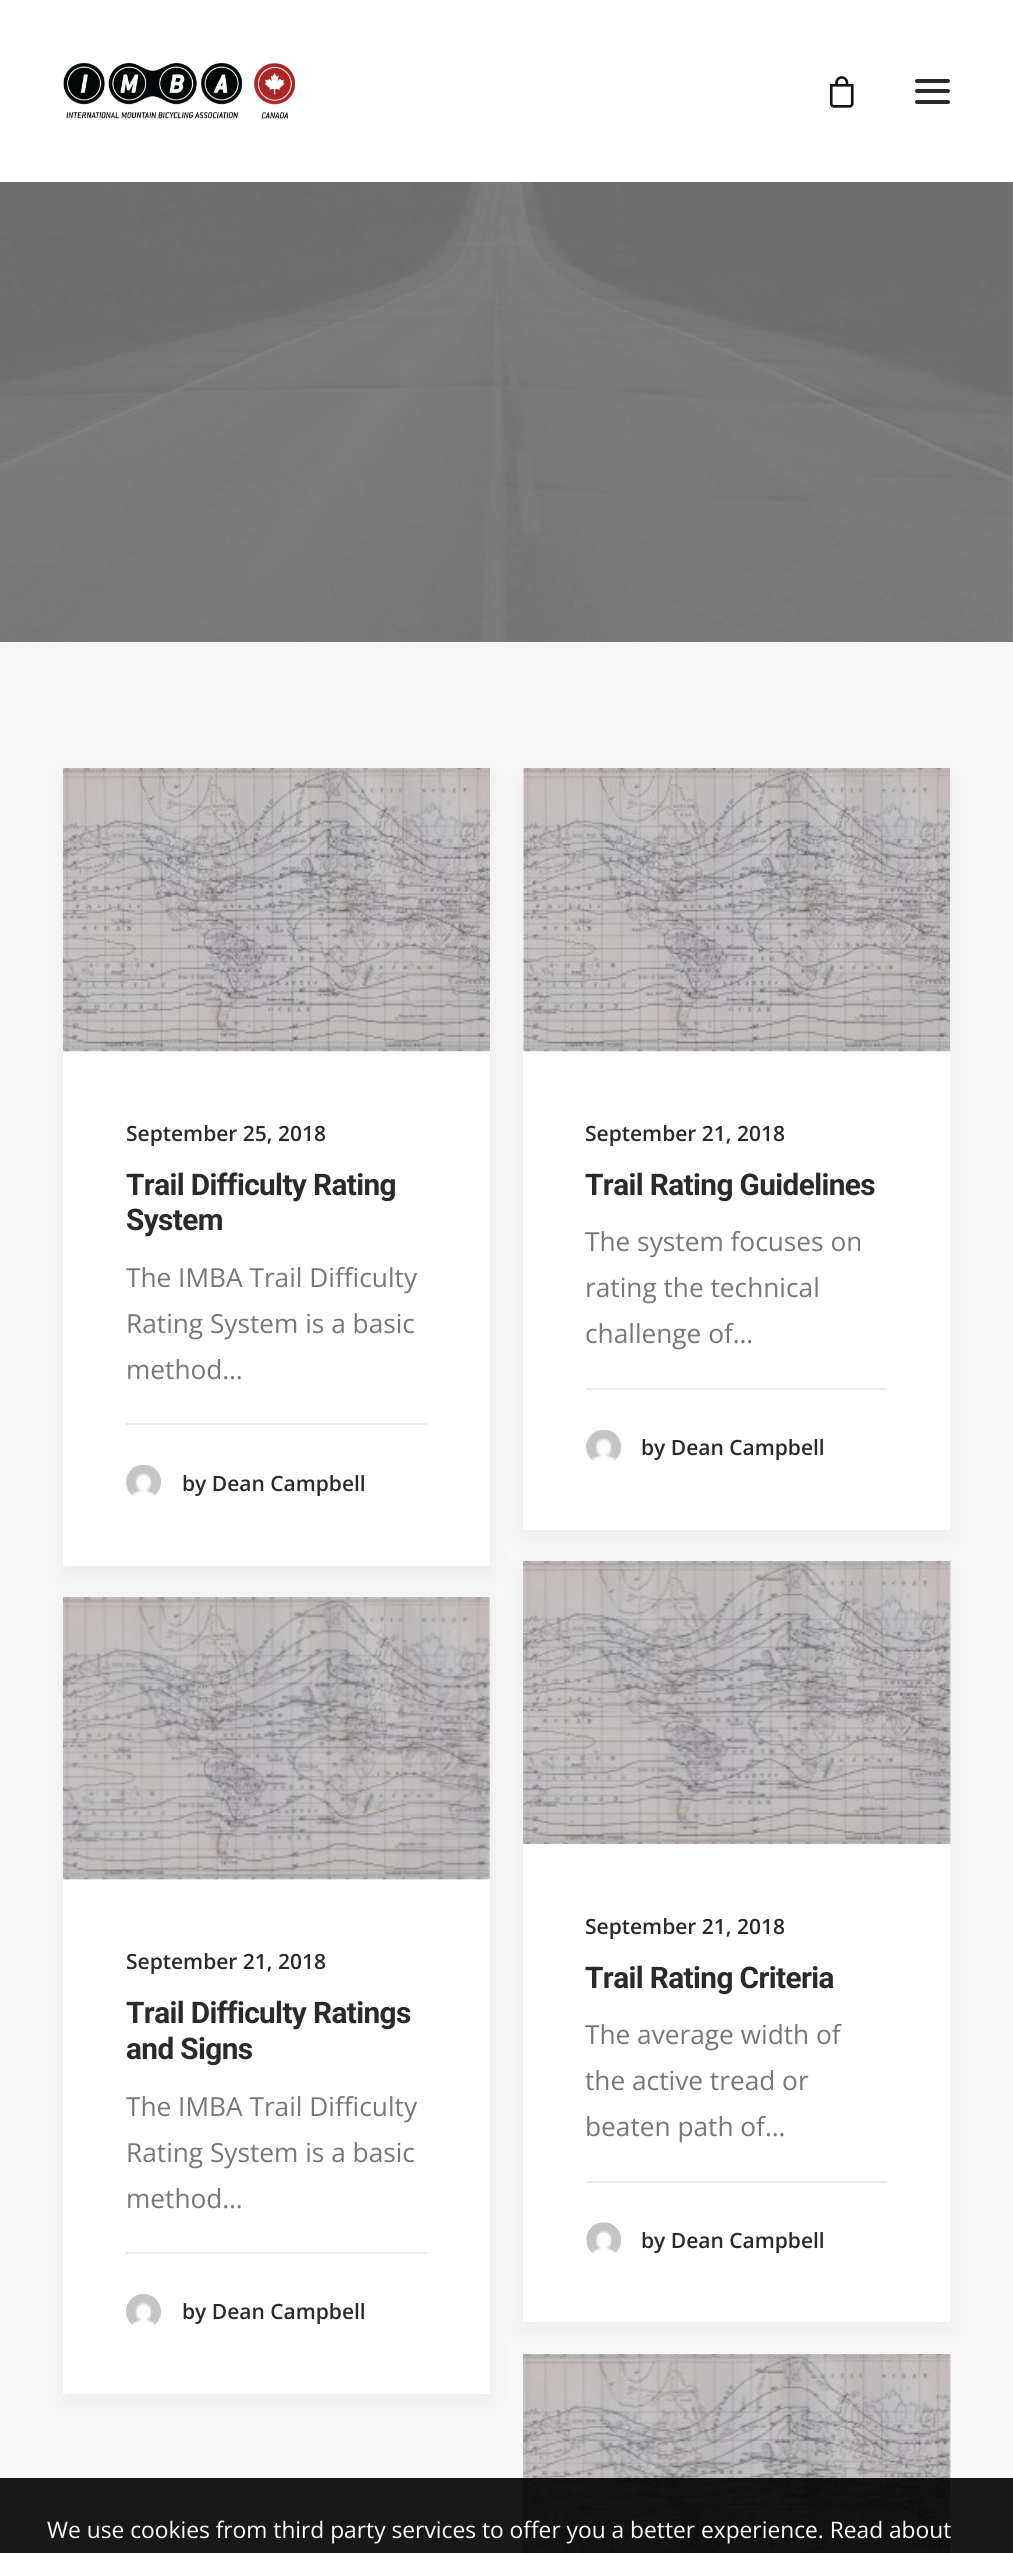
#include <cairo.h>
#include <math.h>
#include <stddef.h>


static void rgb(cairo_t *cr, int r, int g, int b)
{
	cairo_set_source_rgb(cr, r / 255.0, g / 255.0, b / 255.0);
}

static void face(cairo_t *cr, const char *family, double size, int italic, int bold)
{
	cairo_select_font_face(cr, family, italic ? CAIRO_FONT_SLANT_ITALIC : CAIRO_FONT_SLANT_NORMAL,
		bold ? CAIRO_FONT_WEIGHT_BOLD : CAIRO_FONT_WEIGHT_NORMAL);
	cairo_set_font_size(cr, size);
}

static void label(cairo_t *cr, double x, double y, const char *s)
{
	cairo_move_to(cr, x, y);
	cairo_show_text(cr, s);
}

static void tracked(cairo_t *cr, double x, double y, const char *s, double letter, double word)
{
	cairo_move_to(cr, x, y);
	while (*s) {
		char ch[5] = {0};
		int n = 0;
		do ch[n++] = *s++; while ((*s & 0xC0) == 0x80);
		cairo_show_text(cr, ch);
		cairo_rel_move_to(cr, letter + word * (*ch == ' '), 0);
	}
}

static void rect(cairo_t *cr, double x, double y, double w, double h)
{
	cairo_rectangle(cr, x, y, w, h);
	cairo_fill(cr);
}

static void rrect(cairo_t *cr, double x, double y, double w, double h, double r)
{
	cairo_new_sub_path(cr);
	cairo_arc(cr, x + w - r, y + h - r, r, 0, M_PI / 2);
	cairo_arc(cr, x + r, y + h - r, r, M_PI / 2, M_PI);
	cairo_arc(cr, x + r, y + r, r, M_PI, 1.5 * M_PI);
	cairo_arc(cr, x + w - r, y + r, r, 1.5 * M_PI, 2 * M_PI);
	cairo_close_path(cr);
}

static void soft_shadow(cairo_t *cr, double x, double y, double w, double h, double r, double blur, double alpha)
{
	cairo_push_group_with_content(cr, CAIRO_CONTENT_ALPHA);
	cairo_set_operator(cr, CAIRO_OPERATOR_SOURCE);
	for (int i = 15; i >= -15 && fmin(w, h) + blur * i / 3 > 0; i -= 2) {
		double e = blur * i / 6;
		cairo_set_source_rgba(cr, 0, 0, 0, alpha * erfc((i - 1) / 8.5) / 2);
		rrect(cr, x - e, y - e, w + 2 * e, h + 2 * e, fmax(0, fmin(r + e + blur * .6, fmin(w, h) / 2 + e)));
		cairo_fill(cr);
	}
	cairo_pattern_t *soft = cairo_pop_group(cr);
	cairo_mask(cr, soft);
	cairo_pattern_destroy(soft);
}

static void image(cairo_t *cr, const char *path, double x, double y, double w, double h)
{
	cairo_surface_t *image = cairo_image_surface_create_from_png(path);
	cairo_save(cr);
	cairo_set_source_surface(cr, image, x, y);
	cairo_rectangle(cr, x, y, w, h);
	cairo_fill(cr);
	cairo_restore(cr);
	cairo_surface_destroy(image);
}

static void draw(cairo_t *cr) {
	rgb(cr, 255, 255, 255);
	cairo_paint(cr);
	image(cr, "image0.png", 63, 63, 232, 56);
	image(cr, "image1.png", 829, 76, 25, 32);
	rgb(cr, 42, 42, 42);
	rrect(cr, 915, 89, 35, 4, 2);
	cairo_fill(cr);
	rrect(cr, 915, 79, 35, 4, 2);
	cairo_fill(cr);
	rrect(cr, 915, 100, 35, 4, 2);
	cairo_fill(cr);
	image(cr, "image2.png", 0, 182, 1013, 460);
	rgb(cr, 247, 247, 247);
	rect(cr, 0, 642, 1013, 1911);
	rgb(cr, 0, 0, 0);
	soft_shadow(cr, 63, 777, 427, 798, 0, 13, 0.05);
	rgb(cr, 255, 255, 255);
	rect(cr, 63, 1051, 427, 515);
	rgb(cr, 0, 0, 0);
	soft_shadow(cr, 523, 777, 427, 761, 0, 13, 0.05);
	image(cr, "image3.png", 63, 768, 427, 284);
	face(cr, "Open Sans SemiBold", 21, 0, 0);
	rgb(cr, 42, 42, 42);
	label(cr, 126, 1141, "September 25, 2018");
	face(cr, "Roboto", 29.75, 0, 1);
	tracked(cr, 126, 1195, "Trail Difficulty Rating", -0.6, 0);
	tracked(cr, 126, 1230, "System", -0.6, 0);
	face(cr, "Open Sans", 26.25, 0, 0);
	rgb(cr, 119, 119, 119);
	label(cr, 126, 1287, "The IMBA Trail Difficulty");
	label(cr, 126, 1333, "Rating System is a basic");
	label(cr, 126, 1379, "method…");
	rgb(cr, 234, 234, 234);
	rect(cr, 126, 1423, 301, 2);
	image(cr, "image4.png", 126, 1465, 35, 31);
	face(cr, "Open Sans SemiBold", 21, 0, 0);
	rgb(cr, 42, 42, 42);
	label(cr, 182, 1491, "by Dean Campbell");
	rgb(cr, 255, 255, 255);
	rect(cr, 523, 768, 427, 762);
	image(cr, "image5.png", 523, 768, 428, 284);
	rgb(cr, 42, 42, 42);
	label(cr, 585, 1141, "September 21, 2018");
	face(cr, "Roboto", 29.75, 0, 1);
	tracked(cr, 585, 1195, "Trail Rating Guidelines", -0.6, 0);
	face(cr, "Open Sans", 26.25, 0, 0);
	rgb(cr, 119, 119, 119);
	label(cr, 585, 1251, "The system focuses on");
	label(cr, 585, 1297, "rating the technical");
	label(cr, 585, 1343, "challenge of…");
	rgb(cr, 234, 234, 234);
	rect(cr, 586, 1388, 301, 2);
	image(cr, "image6.png", 586, 1430, 35, 31);
	face(cr, "Open Sans SemiBold", 21, 0, 0);
	rgb(cr, 42, 42, 42);
	label(cr, 641, 1455, "by Dean Campbell");
	rgb(cr, 0, 0, 0);
	soft_shadow(cr, 523, 1570, 427, 761, 0, 13, 0.05);
	rgb(cr, 255, 255, 255);
	rect(cr, 523, 1561, 427, 761);
	rgb(cr, 0, 0, 0);
	soft_shadow(cr, 63, 1607, 427, 796, 0, 13, 0.05);
	rgb(cr, 255, 255, 255);
	rect(cr, 63, 1598, 427, 796);
	image(cr, "image7.png", 63, 1597, 427, 283);
	rgb(cr, 42, 42, 42);
	label(cr, 126, 1969, "September 21, 2018");
	face(cr, "Roboto", 29.75, 0, 1);
	tracked(cr, 126, 2023, "Trail Difficulty Ratings", -0.6, 0);
	tracked(cr, 126, 2059, "and Signs", -0.6, 0);
	face(cr, "Open Sans", 26.25, 0, 0);
	rgb(cr, 119, 119, 119);
	label(cr, 126, 2116, "The IMBA Trail Difficulty");
	label(cr, 126, 2162, "Rating System is a basic");
	label(cr, 126, 2208, "method…");
	rgb(cr, 234, 234, 234);
	rect(cr, 126, 2252, 301, 2);
	image(cr, "image8.png", 126, 2294, 35, 32);
	face(cr, "Open Sans SemiBold", 21, 0, 0);
	rgb(cr, 42, 42, 42);
	label(cr, 182, 2319, "by Dean Campbell");
	image(cr, "image9.png", 523, 1561, 428, 283);
	label(cr, 585, 1934, "September 21, 2018");
	face(cr, "Roboto", 29.75, 0, 1);
	tracked(cr, 585, 1988, "Trail Rating Criteria", -0.6, 0);
	face(cr, "Open Sans", 26.25, 0, 0);
	rgb(cr, 119, 119, 119);
	label(cr, 585, 2044, "The average width of");
	label(cr, 585, 2090, "the active tread or");
	label(cr, 585, 2136, "beaten path of…");
	rgb(cr, 234, 234, 234);
	rect(cr, 586, 2181, 301, 2);
	image(cr, "image10.png", 586, 2222, 35, 32);
	face(cr, "Open Sans SemiBold", 21, 0, 0);
	rgb(cr, 42, 42, 42);
	label(cr, 641, 2248, "by Dean Campbell");
	image(cr, "image11.png", 523, 2354, 428, 199);
	cairo_set_source_rgba(cr, 0, 0, 0, 0.9);
	rect(cr, 0, 2478, 1013, 75);
	face(cr, "Open Sans", 22.75, 0, 0);
	rgb(cr, 255, 255, 255);
	label(cr, 47, 2538, "We use cookies from third party services to offer you a better experience. Read about");
}

int main(void) {
	cairo_surface_t *surface = cairo_image_surface_create(CAIRO_FORMAT_RGB24, 1013, 2553);
	cairo_t *cr = cairo_create(surface);
	cairo_font_options_t *options = cairo_font_options_create();
	cairo_font_options_set_hint_metrics(options, CAIRO_HINT_METRICS_OFF);
	cairo_font_options_set_hint_style(options, CAIRO_HINT_STYLE_NONE);
	cairo_set_font_options(cr, options);
	cairo_set_miter_limit(cr, 4);
	draw(cr);
	cairo_surface_write_to_png(surface, "render.png");
	cairo_font_options_destroy(options);
	cairo_destroy(cr);
	cairo_surface_destroy(surface);
	return 0;
}
